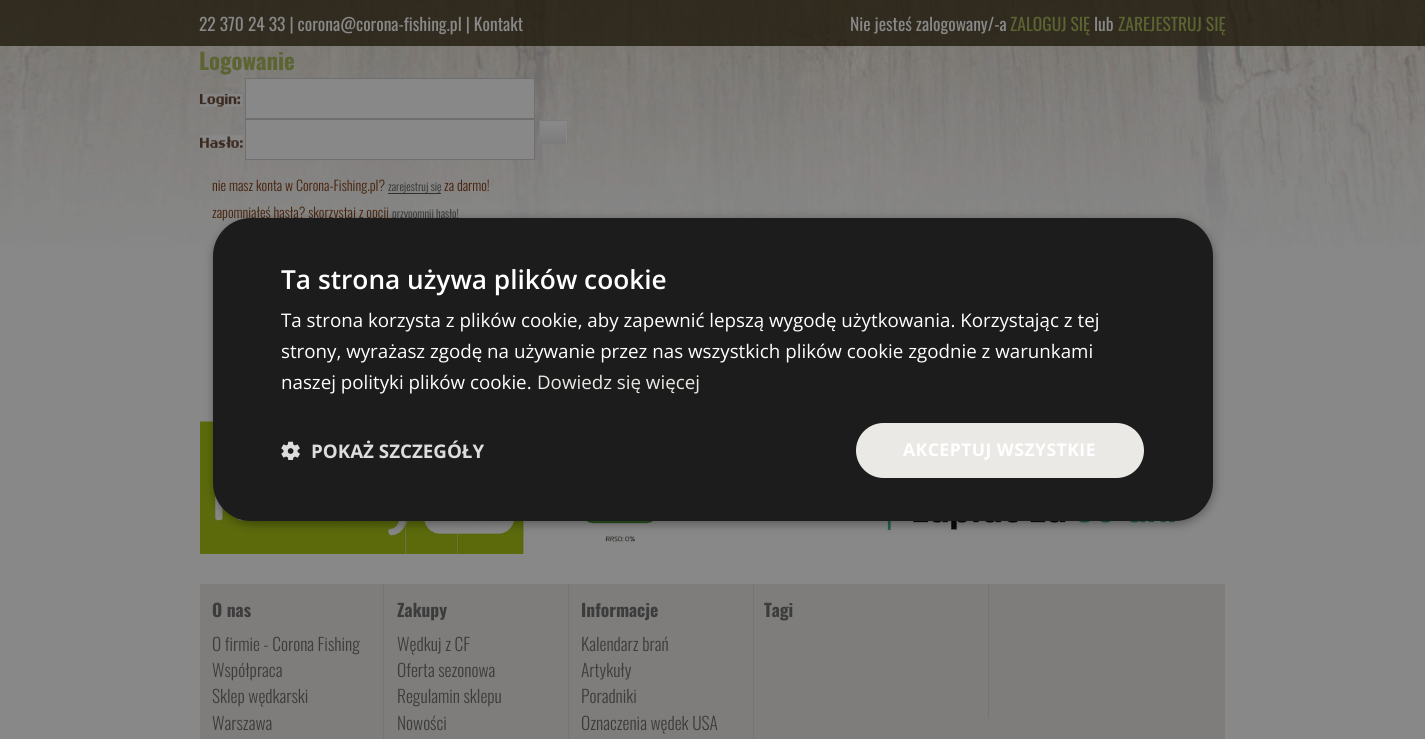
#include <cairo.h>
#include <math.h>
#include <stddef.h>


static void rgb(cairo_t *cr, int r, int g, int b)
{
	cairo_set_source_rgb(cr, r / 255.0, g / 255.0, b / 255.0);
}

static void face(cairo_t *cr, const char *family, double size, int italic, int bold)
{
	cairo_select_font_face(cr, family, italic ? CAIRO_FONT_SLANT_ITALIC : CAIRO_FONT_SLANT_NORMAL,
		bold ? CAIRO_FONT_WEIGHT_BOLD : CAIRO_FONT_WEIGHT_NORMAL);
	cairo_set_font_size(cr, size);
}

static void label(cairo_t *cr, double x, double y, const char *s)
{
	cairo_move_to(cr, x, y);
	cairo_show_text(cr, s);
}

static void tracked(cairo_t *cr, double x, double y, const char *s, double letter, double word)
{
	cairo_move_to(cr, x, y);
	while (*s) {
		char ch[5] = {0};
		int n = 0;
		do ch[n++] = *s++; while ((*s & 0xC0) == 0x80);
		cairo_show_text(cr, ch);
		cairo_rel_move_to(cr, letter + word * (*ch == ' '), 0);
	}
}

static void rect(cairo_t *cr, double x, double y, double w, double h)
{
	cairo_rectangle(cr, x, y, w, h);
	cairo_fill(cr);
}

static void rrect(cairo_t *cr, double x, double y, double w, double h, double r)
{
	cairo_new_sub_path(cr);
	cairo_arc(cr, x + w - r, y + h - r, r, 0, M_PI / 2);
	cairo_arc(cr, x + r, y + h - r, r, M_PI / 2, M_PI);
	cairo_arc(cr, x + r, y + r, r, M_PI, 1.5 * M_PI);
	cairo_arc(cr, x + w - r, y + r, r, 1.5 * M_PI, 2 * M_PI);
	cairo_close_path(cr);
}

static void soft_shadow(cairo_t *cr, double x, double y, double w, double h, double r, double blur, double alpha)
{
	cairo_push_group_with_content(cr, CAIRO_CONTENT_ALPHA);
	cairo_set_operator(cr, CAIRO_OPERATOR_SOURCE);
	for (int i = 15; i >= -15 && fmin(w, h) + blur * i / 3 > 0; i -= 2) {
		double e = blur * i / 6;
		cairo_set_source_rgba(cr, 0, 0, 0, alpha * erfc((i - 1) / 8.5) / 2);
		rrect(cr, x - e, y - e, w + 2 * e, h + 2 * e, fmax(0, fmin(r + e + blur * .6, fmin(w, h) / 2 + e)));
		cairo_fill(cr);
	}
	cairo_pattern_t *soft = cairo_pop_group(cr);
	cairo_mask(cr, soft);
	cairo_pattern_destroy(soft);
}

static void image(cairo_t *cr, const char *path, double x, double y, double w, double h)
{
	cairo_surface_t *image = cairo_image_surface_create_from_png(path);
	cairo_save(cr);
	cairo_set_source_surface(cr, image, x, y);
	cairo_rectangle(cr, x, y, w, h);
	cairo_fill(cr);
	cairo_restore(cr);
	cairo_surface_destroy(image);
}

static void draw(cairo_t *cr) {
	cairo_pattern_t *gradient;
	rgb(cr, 136, 136, 136);
	cairo_paint(cr);
	image(cr, "image0.png", 0, 0, 1425, 247);
	cairo_set_source_rgba(cr, 0.125, 0.098, 0.047, 0.8);
	rect(cr, 0, 0, 1425, 46);
	face(cr, "Oswald", 17.5, 0, 0);
	rgb(cr, 136, 136, 136);
	label(cr, 199, 31, "22 370 24 33 | corona@corona-fishing.pl | Kontakt");
	label(cr, 850, 31, "Nie jesteś zalogowany/-a");
	rgb(cr, 92, 100, 50);
	label(cr, 1010, 31, "ZALOGUJ SIĘ");
	rgb(cr, 136, 136, 136);
	label(cr, 1094, 31, "lub");
	rgb(cr, 92, 100, 50);
	label(cr, 1118, 31, "ZAREJESTRUJ SIĘ");
	face(cr, "Oswald", 22.75, 0, 1);
	label(cr, 199, 70, "Logowanie");
	image(cr, "image1.png", 200, 94, 43, 13);
	rgb(cr, 136, 136, 136);
	cairo_rectangle(cr, 245.5, 78.5, 289, 40);
	cairo_fill_preserve(cr);
	rgb(cr, 111, 111, 111);
	cairo_set_line_width(cr, 1);
	cairo_stroke(cr);
	image(cr, "image2.png", 200, 135, 43, 13);
	rgb(cr, 136, 136, 136);
	cairo_rectangle(cr, 245.5, 119.5, 289, 40);
	cairo_fill_preserve(cr);
	rgb(cr, 111, 111, 111);
	cairo_stroke(cr);
	rgb(cr, 136, 136, 136);
	rect(cr, 566, 121, 1, 22);
	gradient = cairo_pattern_create_linear(553, 143, 553, 121);
	cairo_pattern_add_color_stop_rgba(gradient, 0, 0.486, 0.486, 0.486, 1);
	cairo_pattern_add_color_stop_rgba(gradient, 0.89, 0.533, 0.533, 0.533, 1);
	cairo_set_source(cr, gradient);
	cairo_pattern_destroy(gradient);
	rect(cr, 540, 121, 26, 22);
	cairo_rectangle(cr, 539.5, 120.5, 28, 23);
	rgb(cr, 124, 124, 124);
	cairo_stroke(cr);
	face(cr, "Oswald Light", 14, 0, 0);
	rgb(cr, 70, 32, 10);
	label(cr, 212, 191, "nie masz konta w Corona-Fishing.pl?");
	rgb(cr, 48, 48, 48);
	rect(cr, 388, 193, 53, 1);
	face(cr, "Oswald Light", 11.25, 0, 0);
	label(cr, 388, 191, "zarejestruj się");
	face(cr, "Oswald Light", 14, 0, 0);
	rgb(cr, 70, 32, 10);
	label(cr, 444, 191, "za darmo!");
	label(cr, 212, 218, "zapomniałeś hasła? skorzystaj z opcji");
	face(cr, "Oswald Light", 11.25, 0, 0);
	rgb(cr, 48, 48, 48);
	label(cr, 392, 218, "przypomnij hasło!");
	image(cr, "image3.png", 200, 421, 491, 133);
	image(cr, "image4.png", 738, 520, 441, 12);
	rgb(cr, 126, 125, 123);
	rect(cr, 200, 584, 1025, 155);
	rgb(cr, 116, 116, 116);
	rect(cr, 383, 584, 1, 155);
	face(cr, "Oswald", 17.5, 0, 1);
	rgb(cr, 60, 60, 60);
	label(cr, 212, 617, "O nas");
	face(cr, "Oswald Light", 17.5, 0, 0);
	label(cr, 212, 651, "O firmie - Corona Fishing");
	label(cr, 212, 677, "Współpraca");
	label(cr, 212, 703, "Sklep wędkarski");
	label(cr, 212, 730, "Warszawa");
	rgb(cr, 116, 116, 116);
	rect(cr, 568, 584, 1, 155);
	face(cr, "Oswald", 17.5, 0, 1);
	rgb(cr, 60, 60, 60);
	label(cr, 397, 617, "Zakupy");
	face(cr, "Oswald Light", 17.5, 0, 0);
	label(cr, 397, 651, "Wędkuj z CF");
	label(cr, 397, 677, "Oferta sezonowa");
	label(cr, 397, 703, "Regulamin sklepu");
	label(cr, 397, 730, "Nowości");
	rgb(cr, 116, 116, 116);
	rect(cr, 753, 584, 1, 155);
	face(cr, "Oswald", 17.5, 0, 1);
	rgb(cr, 60, 60, 60);
	label(cr, 581, 617, "Informacje");
	face(cr, "Oswald Light", 17.5, 0, 0);
	label(cr, 581, 651, "Kalendarz brań");
	label(cr, 581, 677, "Artykuły");
	label(cr, 581, 703, "Poradniki");
	label(cr, 581, 730, "Oznaczenia wędek USA");
	rgb(cr, 116, 116, 116);
	rect(cr, 988, 584, 1, 134);
	face(cr, "Oswald", 17.5, 0, 1);
	rgb(cr, 60, 60, 60);
	label(cr, 764, 617, "Tagi");
	rgb(cr, 0, 0, 0);
	soft_shadow(cr, 214, 220, 1000, 304, 38, 5, 0.35);
	rgb(cr, 28, 28, 28);
	rrect(cr, 213, 218, 1000, 303, 38);
	cairo_fill(cr);
	face(cr, "Open Sans SemiBold", 26.25, 0, 0);
	rgb(cr, 255, 255, 255);
	label(cr, 281, 289, "Ta strona używa plików cookie");
	face(cr, "Open Sans", 18.75, 0, 0);
	label(cr, 281, 327, "Ta strona korzysta z plików cookie, aby zapewnić lepszą wygodę użytkowania. Korzystając z tej");
	label(cr, 281, 358, "strony, wyrażasz zgodę na używanie przez nas wszystkich plików cookie zgodnie z warunkami");
	label(cr, 281, 389, "naszej polityki plików cookie.");
	rgb(cr, 235, 233, 229);
	label(cr, 537, 389, "Dowiedz się więcej");
	image(cr, "image5.png", 281, 441, 19, 19);
	face(cr, "Open Sans", 18.75, 0, 1);
	rgb(cr, 221, 221, 221);
	label(cr, 311, 458, "POKAŻ SZCZEGÓŁY");
	rgb(cr, 235, 233, 229);
	rrect(cr, 856, 423, 288, 55, 27.5);
	cairo_fill(cr);
	face(cr, "Open Sans", 17.5, 0, 1);
	rgb(cr, 255, 255, 255);
	tracked(cr, 903, 456, "AKCEPTUJ WSZYSTKIE", 0.5, 0);
}

int main(void) {
	cairo_surface_t *surface = cairo_image_surface_create(CAIRO_FORMAT_RGB24, 1425, 739);
	cairo_t *cr = cairo_create(surface);
	cairo_font_options_t *options = cairo_font_options_create();
	cairo_font_options_set_hint_metrics(options, CAIRO_HINT_METRICS_OFF);
	cairo_font_options_set_hint_style(options, CAIRO_HINT_STYLE_NONE);
	cairo_set_font_options(cr, options);
	cairo_set_miter_limit(cr, 4);
	draw(cr);
	cairo_surface_write_to_png(surface, "render.png");
	cairo_font_options_destroy(options);
	cairo_destroy(cr);
	cairo_surface_destroy(surface);
	return 0;
}
